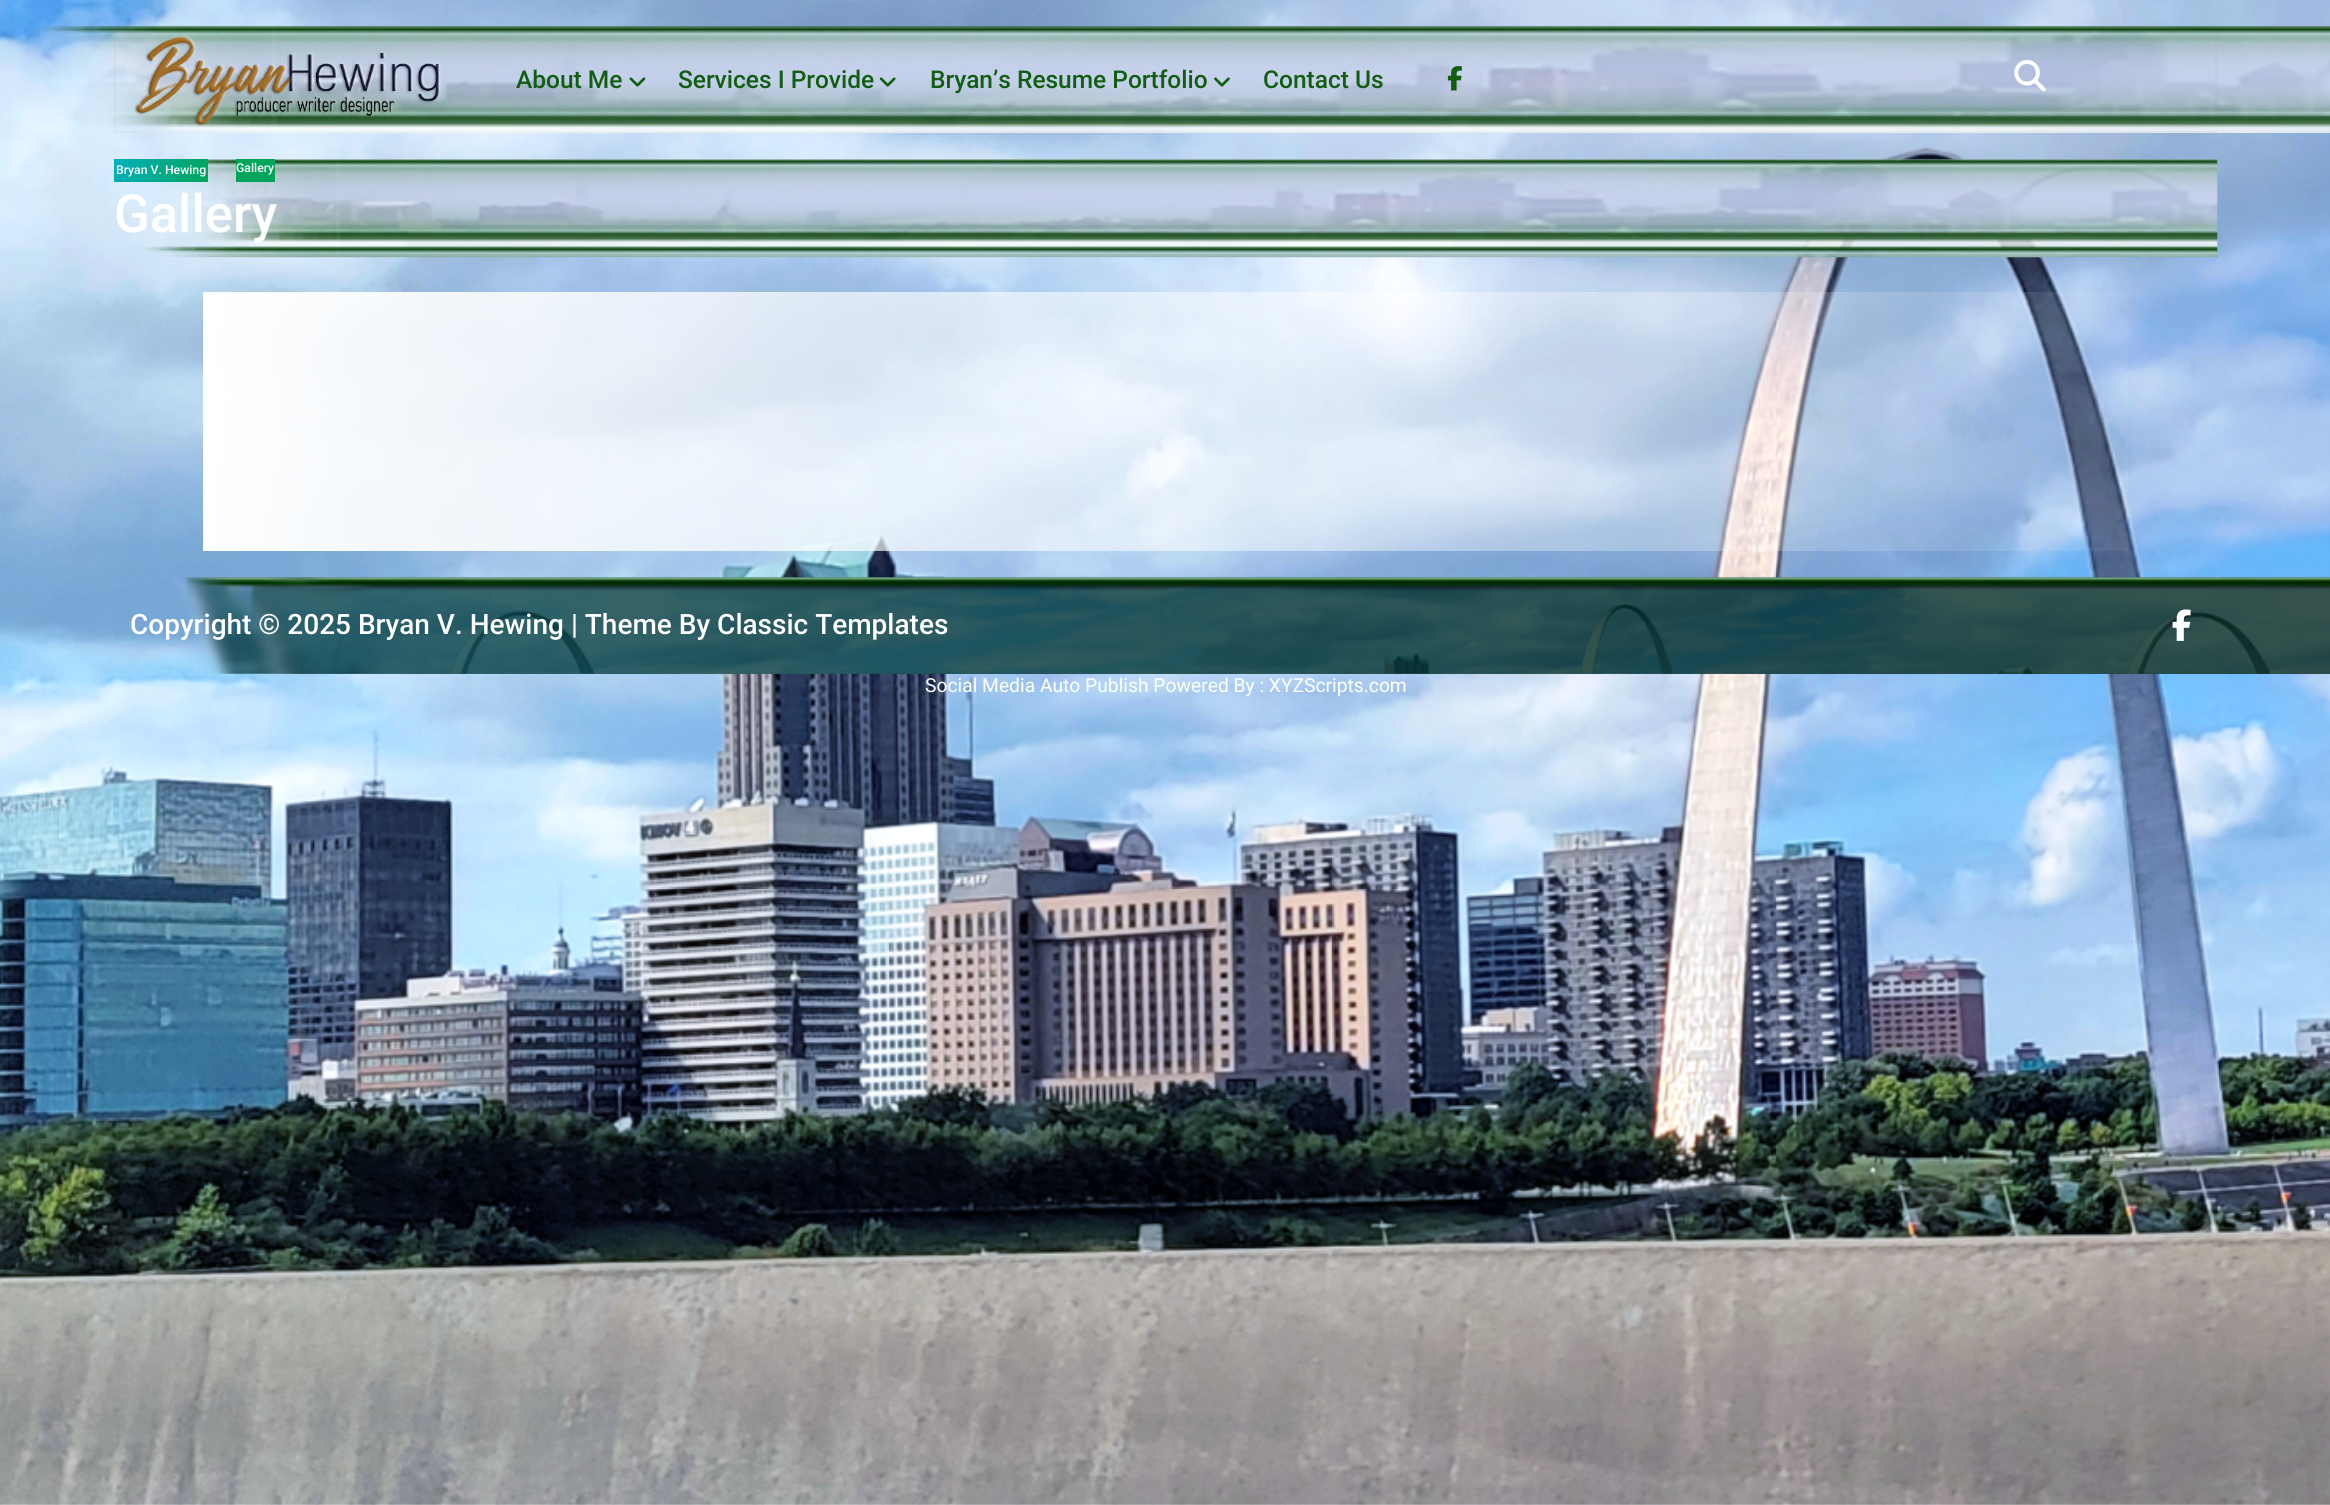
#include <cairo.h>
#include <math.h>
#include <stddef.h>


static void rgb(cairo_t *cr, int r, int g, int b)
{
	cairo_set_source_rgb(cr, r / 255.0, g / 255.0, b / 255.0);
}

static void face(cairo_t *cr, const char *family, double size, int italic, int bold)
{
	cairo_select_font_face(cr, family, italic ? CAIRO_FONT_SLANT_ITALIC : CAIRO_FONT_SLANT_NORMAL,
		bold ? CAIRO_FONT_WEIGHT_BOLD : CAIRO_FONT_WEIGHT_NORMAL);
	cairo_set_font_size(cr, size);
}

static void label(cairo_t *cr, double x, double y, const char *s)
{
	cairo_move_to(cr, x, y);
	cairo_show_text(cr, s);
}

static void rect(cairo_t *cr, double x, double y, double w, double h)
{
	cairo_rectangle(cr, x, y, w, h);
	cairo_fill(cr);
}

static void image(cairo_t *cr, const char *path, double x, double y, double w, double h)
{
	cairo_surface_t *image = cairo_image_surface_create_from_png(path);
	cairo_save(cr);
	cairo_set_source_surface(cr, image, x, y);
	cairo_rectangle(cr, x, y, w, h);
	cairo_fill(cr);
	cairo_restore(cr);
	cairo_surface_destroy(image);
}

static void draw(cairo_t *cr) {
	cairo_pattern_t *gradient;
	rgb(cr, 255, 255, 255);
	cairo_paint(cr);
	image(cr, "image0.png", 0, 0, 2330, 1505);
	image(cr, "image1.png", 31, 26, 2299, 107);
	cairo_rectangle(cr, 115, 27, 2101, 105);
	cairo_set_source_rgba(cr, 0.408, 0.408, 0.408, 0.05);
	cairo_stroke(cr);
	image(cr, "image2.png", 134, 35, 307, 91);
	face(cr, "Roboto Medium", 24.5, 0, 0);
	rgb(cr, 17, 94, 18);
	label(cr, 516, 88, "About Me");
	image(cr, "image3.png", 629, 77, 17, 10);
	label(cr, 678, 88, "Services I Provide");
	image(cr, "image4.png", 879, 77, 17, 10);
	label(cr, 930, 88, "Bryan’s Resume Portfolio");
	image(cr, "image5.png", 1214, 77, 16, 10);
	label(cr, 1263, 88, "Contact Us");
	image(cr, "image6.png", 1447, 66, 15, 25);
	image(cr, "image7.png", 2014, 60, 32, 32);
	image(cr, "image8.png", 139, 159, 2079, 99);
	gradient = cairo_pattern_create_linear(114, 158, 208, 183);
	cairo_pattern_add_color_stop_rgba(gradient, 0, 0, 0.69, 0.737, 1);
	cairo_pattern_add_color_stop_rgba(gradient, 1, 0, 0.647, 0.357, 1);
	cairo_set_source(cr, gradient);
	cairo_pattern_destroy(gradient);
	rect(cr, 114, 159, 94, 23);
	face(cr, "Roboto Medium", 12.25, 0, 0);
	rgb(cr, 255, 255, 255);
	label(cr, 116, 174, "Bryan V. Hewing");
	rgb(cr, 0, 165, 91);
	rect(cr, 236, 159, 39, 23);
	rgb(cr, 255, 255, 255);
	label(cr, 236, 172, "Gallery");
	face(cr, "Roboto Medium", 52.5, 0, 0);
	label(cr, 114, 232, "Gallery");
	image(cr, "image9.png", 171, 577, 2159, 97);
	image(cr, "image10.png", 185, 577, 2145, 97);
	face(cr, "Roboto Medium", 28, 0, 0);
	label(cr, 130, 634, "Copyright © 2025 Bryan V. Hewing | Theme By Classic Templates");
	image(cr, "image11.png", 2172, 609, 19, 32);
	face(cr, "Roboto", 19.25, 0, 0);
	label(cr, 925, 692, "Social Media Auto Publish Powered By : XYZScripts.com");
}

int main(void) {
	cairo_surface_t *surface = cairo_image_surface_create(CAIRO_FORMAT_RGB24, 2330, 1505);
	cairo_t *cr = cairo_create(surface);
	cairo_font_options_t *options = cairo_font_options_create();
	cairo_font_options_set_hint_metrics(options, CAIRO_HINT_METRICS_OFF);
	cairo_font_options_set_hint_style(options, CAIRO_HINT_STYLE_NONE);
	cairo_set_font_options(cr, options);
	cairo_set_miter_limit(cr, 4);
	draw(cr);
	cairo_surface_write_to_png(surface, "render.png");
	cairo_font_options_destroy(options);
	cairo_destroy(cr);
	cairo_surface_destroy(surface);
	return 0;
}
